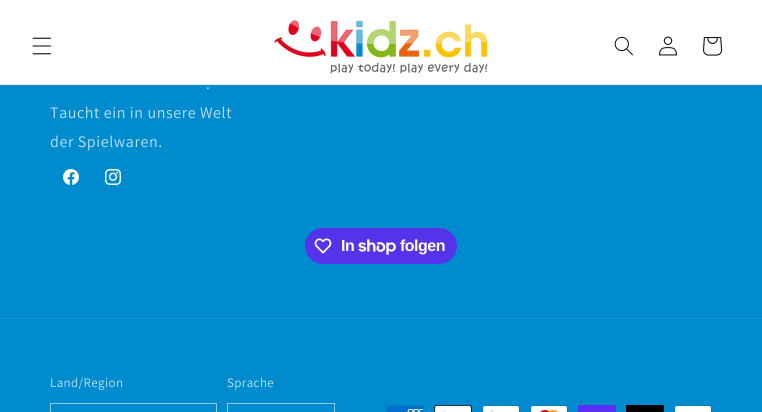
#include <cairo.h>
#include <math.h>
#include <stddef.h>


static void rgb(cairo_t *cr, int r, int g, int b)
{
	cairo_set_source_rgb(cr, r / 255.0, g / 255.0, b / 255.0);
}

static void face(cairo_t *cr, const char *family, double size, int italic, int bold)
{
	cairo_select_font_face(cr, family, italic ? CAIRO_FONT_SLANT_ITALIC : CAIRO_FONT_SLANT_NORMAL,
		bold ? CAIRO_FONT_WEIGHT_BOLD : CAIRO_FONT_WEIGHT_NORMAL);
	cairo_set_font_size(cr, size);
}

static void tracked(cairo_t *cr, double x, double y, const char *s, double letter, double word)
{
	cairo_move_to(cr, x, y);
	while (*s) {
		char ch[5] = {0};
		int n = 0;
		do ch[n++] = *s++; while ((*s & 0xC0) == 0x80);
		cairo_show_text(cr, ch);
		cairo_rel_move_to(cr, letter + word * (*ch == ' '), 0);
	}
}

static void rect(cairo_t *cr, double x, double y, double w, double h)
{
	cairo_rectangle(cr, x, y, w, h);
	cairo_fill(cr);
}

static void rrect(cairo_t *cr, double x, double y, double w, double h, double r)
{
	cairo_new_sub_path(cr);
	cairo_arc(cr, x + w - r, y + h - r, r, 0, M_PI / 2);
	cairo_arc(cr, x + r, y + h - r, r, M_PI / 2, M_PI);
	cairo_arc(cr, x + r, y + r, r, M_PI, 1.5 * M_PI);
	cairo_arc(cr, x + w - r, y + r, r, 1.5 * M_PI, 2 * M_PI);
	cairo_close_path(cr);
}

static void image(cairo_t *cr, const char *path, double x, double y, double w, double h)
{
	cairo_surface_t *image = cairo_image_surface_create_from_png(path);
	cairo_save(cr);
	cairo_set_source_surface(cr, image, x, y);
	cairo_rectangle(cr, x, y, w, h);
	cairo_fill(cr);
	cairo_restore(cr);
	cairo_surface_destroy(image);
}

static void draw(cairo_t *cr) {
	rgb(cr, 0, 139, 207);
	cairo_paint(cr);
	rgb(cr, 255, 255, 255);
	rect(cr, 0, 0, 762, 84);
	rgb(cr, 236, 236, 236);
	rect(cr, 0, 84, 762, 1);
	image(cr, "image0.png", 32, 37, 20, 18);
	image(cr, "image1.png", 274, 20, 214, 54);
	image(cr, "image2.png", 614, 36, 19, 20);
	image(cr, "image3.png", 659, 36, 18, 20);
	image(cr, "image4.png", 703, 37, 20, 19);
	face(cr, "Assistant", 16, 0, 0);
	rgb(cr, 191, 226, 243);
	tracked(cr, 206, 89, ".", 0.6, 0);
	tracked(cr, 50, 118, "Taucht ein in unsere Welt", 0.6, 0);
	tracked(cr, 50, 147, "der Spielwaren.", 0.6, 0);
	image(cr, "image5.png", 63, 169, 16, 16);
	image(cr, "image6.png", 105, 169, 16, 16);
	rgb(cr, 84, 51, 235);
	rrect(cr, 305, 228, 152, 36, 18);
	cairo_fill(cr);
	image(cr, "image7.png", 314, 238, 18, 16);
	face(cr, "Liberation Sans", 16, 0, 1);
	rgb(cr, 255, 255, 255);
	tracked(cr, 341, 251, "In", -0.5, 0);
	image(cr, "image8.png", 358, 239, 38, 16);
	tracked(cr, 400, 251, "folgen", -0.5, 0);
	rgb(cr, 20, 148, 211);
	rect(cr, 0, 318, 762, 1);
	face(cr, "Assistant", 13, 0, 0);
	rgb(cr, 191, 226, 243);
	tracked(cr, 50, 387, "Land/Region", 0.4, 0);
	cairo_rectangle(cr, 50.5, 403.5, 166, 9);
	rgb(cr, 140, 203, 233);
	cairo_set_line_width(cr, 1);
	cairo_stroke(cr);
	rgb(cr, 191, 226, 243);
	tracked(cr, 227, 387, "Sprache", 0.4, 0);
	cairo_rectangle(cr, 227.5, 403.5, 107, 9);
	rgb(cr, 140, 203, 233);
	cairo_stroke(cr);
	image(cr, "image9.png", 386, 405, 38, 7);
	image(cr, "image10.png", 434, 405, 38, 7);
	image(cr, "image11.png", 482, 405, 38, 7);
	image(cr, "image12.png", 530, 405, 38, 7);
	rgb(cr, 90, 49, 244);
	rect(cr, 578, 405, 38, 7);
	rgb(cr, 0, 0, 0);
	rect(cr, 626, 405, 38, 7);
	image(cr, "image13.png", 674, 405, 38, 7);
}

int main(void) {
	cairo_surface_t *surface = cairo_image_surface_create(CAIRO_FORMAT_RGB24, 762, 412);
	cairo_t *cr = cairo_create(surface);
	cairo_font_options_t *options = cairo_font_options_create();
	cairo_font_options_set_hint_metrics(options, CAIRO_HINT_METRICS_OFF);
	cairo_font_options_set_hint_style(options, CAIRO_HINT_STYLE_NONE);
	cairo_set_font_options(cr, options);
	cairo_set_miter_limit(cr, 4);
	draw(cr);
	cairo_surface_write_to_png(surface, "render.png");
	cairo_font_options_destroy(options);
	cairo_destroy(cr);
	cairo_surface_destroy(surface);
	return 0;
}
